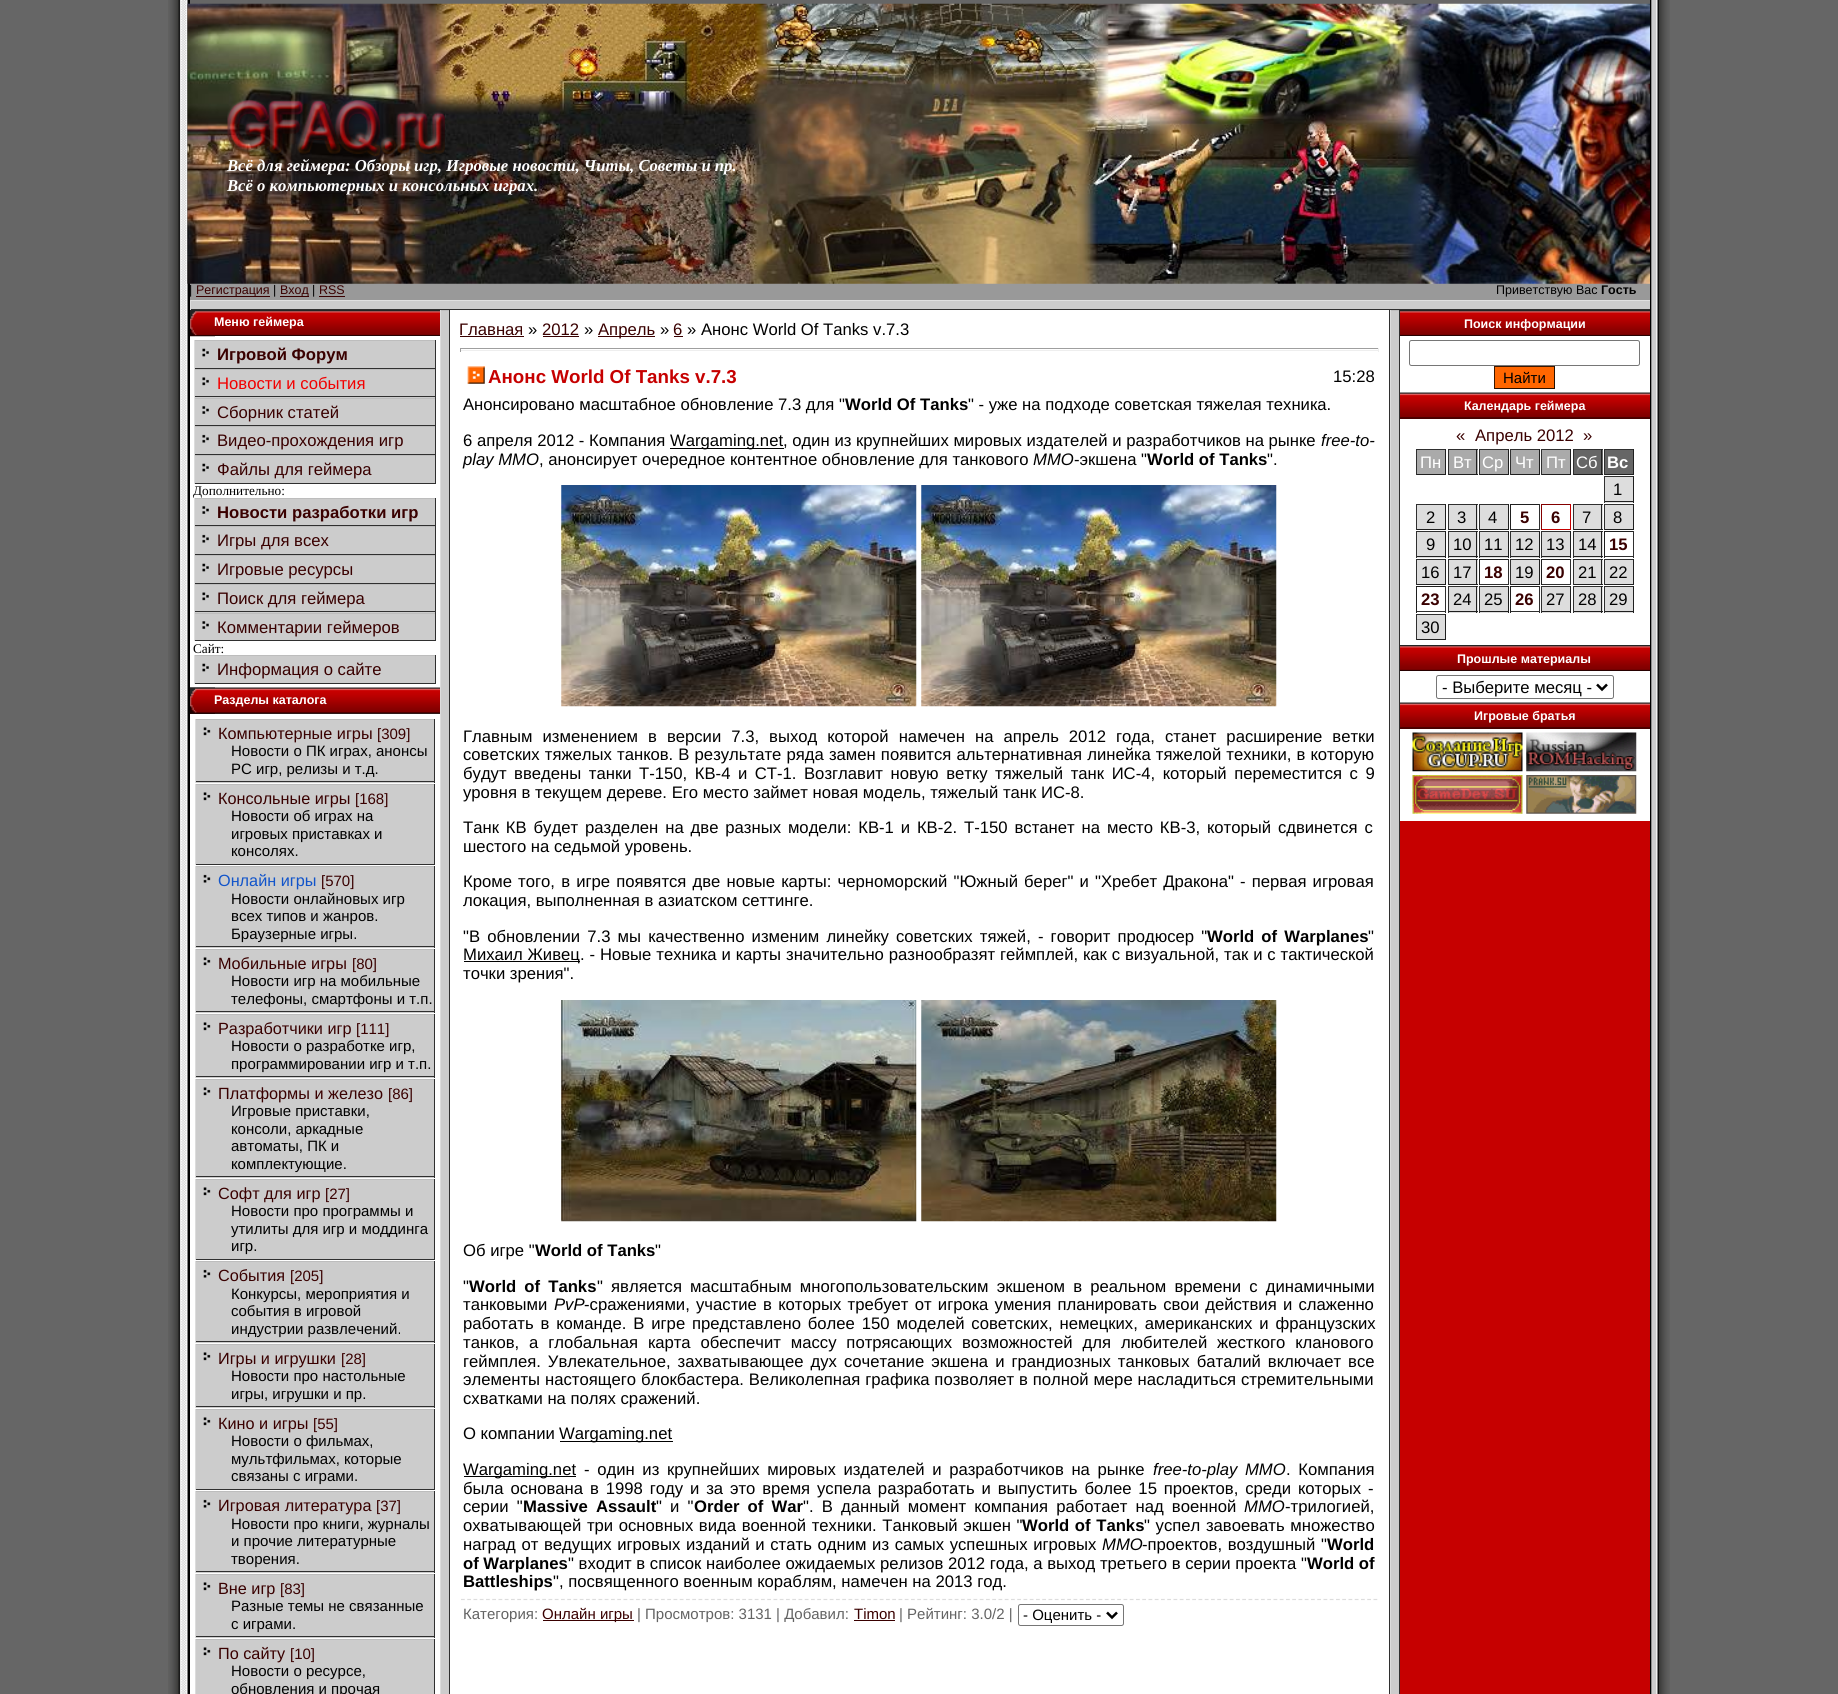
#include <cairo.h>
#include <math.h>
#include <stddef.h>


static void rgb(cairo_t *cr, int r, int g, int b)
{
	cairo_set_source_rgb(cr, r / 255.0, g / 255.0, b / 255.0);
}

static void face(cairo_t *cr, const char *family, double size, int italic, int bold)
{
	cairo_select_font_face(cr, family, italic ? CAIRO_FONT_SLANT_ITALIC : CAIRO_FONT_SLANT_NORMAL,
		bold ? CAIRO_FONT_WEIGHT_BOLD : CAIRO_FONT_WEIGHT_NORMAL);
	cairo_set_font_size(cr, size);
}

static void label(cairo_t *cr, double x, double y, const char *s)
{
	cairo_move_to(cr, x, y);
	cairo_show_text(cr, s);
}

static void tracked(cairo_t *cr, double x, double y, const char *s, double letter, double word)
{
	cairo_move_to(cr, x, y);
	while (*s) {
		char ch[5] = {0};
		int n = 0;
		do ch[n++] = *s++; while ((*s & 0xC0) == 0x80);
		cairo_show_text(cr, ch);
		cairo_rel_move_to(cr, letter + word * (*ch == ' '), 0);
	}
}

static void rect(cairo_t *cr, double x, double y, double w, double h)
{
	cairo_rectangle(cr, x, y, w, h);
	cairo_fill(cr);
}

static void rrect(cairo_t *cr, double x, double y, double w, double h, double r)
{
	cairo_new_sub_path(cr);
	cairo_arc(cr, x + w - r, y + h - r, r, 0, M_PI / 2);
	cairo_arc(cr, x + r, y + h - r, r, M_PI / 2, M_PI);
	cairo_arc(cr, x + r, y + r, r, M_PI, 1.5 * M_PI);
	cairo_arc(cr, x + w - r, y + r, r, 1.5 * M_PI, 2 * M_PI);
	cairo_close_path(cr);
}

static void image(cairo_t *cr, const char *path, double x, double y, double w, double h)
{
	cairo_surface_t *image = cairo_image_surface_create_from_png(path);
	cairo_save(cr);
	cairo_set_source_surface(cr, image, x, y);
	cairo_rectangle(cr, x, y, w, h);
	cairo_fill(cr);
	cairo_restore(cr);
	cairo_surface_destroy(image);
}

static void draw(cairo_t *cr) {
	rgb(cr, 102, 102, 102);
	cairo_paint(cr);
	image(cr, "image0.png", 168, 0, 22, 1694);
	image(cr, "image3.png", 190, 283, 1460, 17);
	image(cr, "image1.png", 187, 3, 1463, 281);
	image(cr, "image2.png", 227, 100, 218, 57);
	face(cr, "Liberation Serif", 16.67, 1, 1);
	rgb(cr, 255, 255, 255);
	label(cr, 227, 171, "Всё для геймера: Обзоры игр, Игровые новости, Читы, Советы и пр.");
	label(cr, 227, 191, "Всё о компьютерных и консольных играх.");
	face(cr, "Liberation Sans", 12.5, 0, 0);
	rgb(cr, 0, 0, 0);
	label(cr, 189, 294, "|");
	rgb(cr, 57, 0, 0);
	rect(cr, 196, 296, 74, 1);
	label(cr, 196, 294, "Регистрация");
	rgb(cr, 0, 0, 0);
	label(cr, 273, 294, "|");
	rgb(cr, 57, 0, 0);
	rect(cr, 280, 296, 29, 1);
	label(cr, 280, 294, "Вход");
	rgb(cr, 0, 0, 0);
	label(cr, 312, 294, "|");
	rgb(cr, 57, 0, 0);
	label(cr, 319, 294, "RSS");
	rect(cr, 319, 296, 26, 1);
	rgb(cr, 0, 0, 0);
	label(cr, 1496, 294, "Приветствую Вас");
	face(cr, "Liberation Sans", 12.5, 0, 1);
	label(cr, 1601, 294, "Гость");
	rgb(cr, 204, 204, 204);
	rect(cr, 191, 301, 1459, 8);
	rgb(cr, 224, 224, 224);
	rect(cr, 190, 300, 1460, 1);
	rgb(cr, 47, 47, 47);
	rect(cr, 190, 309, 1460, 1);
	rgb(cr, 220, 220, 220);
	rect(cr, 190, 300, 1, 10);
	image(cr, "image4.png", 190, 310, 250, 26);
	rgb(cr, 255, 255, 255);
	rect(cr, 190, 336, 250, 352);
	image(cr, "image5.png", 190, 311, 25, 26);
	label(cr, 214, 326, "Меню геймера");
	rgb(cr, 204, 204, 204);
	rect(cr, 195, 341, 240, 27);
	image(cr, "image6.png", 202, 348, 7, 9);
	rgb(cr, 189, 189, 189);
	rect(cr, 194, 340, 242, 1);
	rgb(cr, 47, 47, 47);
	rect(cr, 435, 340, 1, 29);
	rect(cr, 194, 368, 242, 1);
	rgb(cr, 220, 220, 220);
	rect(cr, 194, 340, 1, 29);
	face(cr, "Liberation Sans", 16.67, 0, 1);
	rgb(cr, 57, 0, 0);
	label(cr, 217, 360, "Игровой Форум");
	rgb(cr, 204, 204, 204);
	rect(cr, 195, 370, 240, 28);
	image(cr, "image7.png", 202, 377, 7, 9);
	rgb(cr, 189, 189, 189);
	rect(cr, 194, 369, 242, 1);
	rgb(cr, 47, 47, 47);
	rect(cr, 435, 369, 1, 29);
	rect(cr, 194, 396, 242, 1);
	rgb(cr, 220, 220, 220);
	rect(cr, 194, 369, 1, 29);
	face(cr, "Liberation Sans", 16.67, 0, 0);
	rgb(cr, 242, 0, 0);
	label(cr, 217, 389, "Новости и события");
	rgb(cr, 204, 204, 204);
	rect(cr, 195, 399, 240, 26);
	image(cr, "image8.png", 202, 406, 7, 8);
	rgb(cr, 189, 189, 189);
	rect(cr, 194, 398, 242, 1);
	rgb(cr, 47, 47, 47);
	rect(cr, 435, 398, 1, 28);
	rect(cr, 194, 425, 242, 1);
	rgb(cr, 220, 220, 220);
	rect(cr, 194, 398, 1, 28);
	rgb(cr, 57, 0, 0);
	label(cr, 217, 418, "Сборник статей");
	rgb(cr, 204, 204, 204);
	rect(cr, 195, 427, 240, 27);
	image(cr, "image9.png", 202, 434, 7, 9);
	rgb(cr, 189, 189, 189);
	rect(cr, 194, 426, 242, 1);
	rgb(cr, 47, 47, 47);
	rect(cr, 435, 426, 1, 29);
	rect(cr, 194, 454, 242, 1);
	rgb(cr, 220, 220, 220);
	rect(cr, 194, 426, 1, 29);
	rgb(cr, 57, 0, 0);
	label(cr, 217, 446, "Видео-прохождения игр");
	rgb(cr, 204, 204, 204);
	rect(cr, 195, 456, 240, 27);
	image(cr, "image6.png", 202, 463, 7, 9);
	rgb(cr, 189, 189, 189);
	rect(cr, 194, 455, 242, 1);
	rgb(cr, 47, 47, 47);
	rect(cr, 435, 455, 1, 29);
	rect(cr, 194, 483, 242, 1);
	rgb(cr, 220, 220, 220);
	rect(cr, 194, 455, 1, 29);
	rgb(cr, 57, 0, 0);
	label(cr, 217, 475, "Файлы для геймера");
	face(cr, "Liberation Serif", 13.25, 0, 0);
	rgb(cr, 0, 0, 0);
	label(cr, 193, 495, "Дополнительно:");
	rgb(cr, 204, 204, 204);
	rect(cr, 195, 499, 240, 26);
	image(cr, "image8.png", 202, 506, 7, 8);
	rgb(cr, 189, 189, 189);
	rect(cr, 194, 498, 242, 1);
	rgb(cr, 47, 47, 47);
	rect(cr, 435, 498, 1, 28);
	rect(cr, 194, 525, 242, 1);
	rgb(cr, 220, 220, 220);
	rect(cr, 194, 498, 1, 28);
	face(cr, "Liberation Sans", 16.67, 0, 1);
	rgb(cr, 57, 0, 0);
	label(cr, 217, 518, "Новости разработки игр");
	rgb(cr, 204, 204, 204);
	rect(cr, 195, 527, 240, 27);
	image(cr, "image9.png", 202, 534, 7, 9);
	rgb(cr, 189, 189, 189);
	rect(cr, 194, 526, 242, 1);
	rgb(cr, 47, 47, 47);
	rect(cr, 435, 526, 1, 29);
	rect(cr, 194, 554, 242, 1);
	rgb(cr, 220, 220, 220);
	rect(cr, 194, 526, 1, 29);
	face(cr, "Liberation Sans", 16.67, 0, 0);
	rgb(cr, 57, 0, 0);
	label(cr, 217, 546, "Игры для всех");
	rgb(cr, 204, 204, 204);
	rect(cr, 195, 556, 240, 27);
	image(cr, "image6.png", 202, 563, 7, 9);
	rgb(cr, 189, 189, 189);
	rect(cr, 194, 555, 242, 1);
	rgb(cr, 47, 47, 47);
	rect(cr, 435, 555, 1, 29);
	rect(cr, 194, 583, 242, 1);
	rgb(cr, 220, 220, 220);
	rect(cr, 194, 555, 1, 29);
	rgb(cr, 57, 0, 0);
	label(cr, 217, 575, "Игровые ресурсы");
	rgb(cr, 204, 204, 204);
	rect(cr, 195, 585, 240, 28);
	image(cr, "image10.png", 202, 592, 7, 9);
	rgb(cr, 189, 189, 189);
	rect(cr, 194, 584, 242, 1);
	rgb(cr, 47, 47, 47);
	rect(cr, 435, 584, 1, 29);
	rect(cr, 194, 611, 242, 1);
	rgb(cr, 220, 220, 220);
	rect(cr, 194, 584, 1, 29);
	rgb(cr, 57, 0, 0);
	label(cr, 217, 604, "Поиск для геймера");
	rgb(cr, 204, 204, 204);
	rect(cr, 195, 614, 240, 26);
	image(cr, "image8.png", 202, 621, 7, 8);
	rgb(cr, 189, 189, 189);
	rect(cr, 194, 613, 242, 1);
	rgb(cr, 47, 47, 47);
	rect(cr, 435, 613, 1, 28);
	rect(cr, 194, 640, 242, 1);
	rgb(cr, 220, 220, 220);
	rect(cr, 194, 613, 1, 28);
	rgb(cr, 57, 0, 0);
	label(cr, 217, 633, "Комментарии геймеров");
	face(cr, "Liberation Serif", 13.25, 0, 0);
	rgb(cr, 0, 0, 0);
	label(cr, 193, 653, "Сайт:");
	rgb(cr, 204, 204, 204);
	rect(cr, 195, 656, 240, 27);
	image(cr, "image6.png", 202, 663, 7, 9);
	rgb(cr, 189, 189, 189);
	rect(cr, 194, 655, 242, 1);
	rgb(cr, 47, 47, 47);
	rect(cr, 435, 655, 1, 29);
	rect(cr, 194, 683, 242, 1);
	rgb(cr, 220, 220, 220);
	rect(cr, 194, 655, 1, 29);
	face(cr, "Liberation Sans", 16.67, 0, 0);
	rgb(cr, 57, 0, 0);
	label(cr, 217, 675, "Информация о сайте");
	image(cr, "image11.png", 190, 687, 250, 27);
	image(cr, "image12.png", 190, 687, 25, 27);
	face(cr, "Liberation Sans", 12.5, 0, 1);
	rgb(cr, 255, 255, 255);
	label(cr, 214, 704, "Разделы каталога");
	rect(cr, 190, 714, 250, 980);
	rgb(cr, 204, 204, 204);
	rect(cr, 196, 720, 238, 63);
	image(cr, "image13.png", 203, 727, 8, 9);
	rgb(cr, 189, 189, 189);
	rect(cr, 195, 719, 240, 1);
	rgb(cr, 47, 47, 47);
	rect(cr, 434, 719, 1, 64);
	rect(cr, 195, 781, 240, 1);
	rgb(cr, 220, 220, 220);
	rect(cr, 195, 719, 1, 64);
	face(cr, "Liberation Sans", 16.25, 0, 0);
	rgb(cr, 57, 0, 0);
	label(cr, 218, 739, "Компьютерные игры");
	face(cr, "Liberation Sans", 15, 0, 0);
	label(cr, 377, 739, "[309]");
	rgb(cr, 0, 0, 0);
	label(cr, 231, 756, "Новости о ПК играх, анонсы");
	label(cr, 231, 774, "PC игр, релизы и т.д.");
	rgb(cr, 204, 204, 204);
	rect(cr, 196, 785, 238, 79);
	image(cr, "image13.png", 203, 792, 8, 9);
	rgb(cr, 189, 189, 189);
	rect(cr, 195, 784, 240, 1);
	rgb(cr, 47, 47, 47);
	rect(cr, 434, 784, 1, 81);
	rect(cr, 195, 864, 240, 1);
	rgb(cr, 220, 220, 220);
	rect(cr, 195, 784, 1, 81);
	face(cr, "Liberation Sans", 16.25, 0, 0);
	rgb(cr, 57, 0, 0);
	label(cr, 218, 804, "Консольные игры");
	face(cr, "Liberation Sans", 15, 0, 0);
	label(cr, 355, 804, "[168]");
	rgb(cr, 0, 0, 0);
	label(cr, 231, 821, "Новости об играх на");
	label(cr, 231, 839, "игровых приставках и");
	label(cr, 231, 856, "консолях.");
	rgb(cr, 204, 204, 204);
	rect(cr, 196, 867, 238, 81);
	image(cr, "image14.png", 203, 874, 8, 9);
	rgb(cr, 189, 189, 189);
	rect(cr, 195, 866, 240, 1);
	rgb(cr, 47, 47, 47);
	rect(cr, 434, 866, 1, 82);
	rect(cr, 195, 946, 240, 1);
	rgb(cr, 220, 220, 220);
	rect(cr, 195, 866, 1, 82);
	face(cr, "Liberation Sans", 16.25, 0, 0);
	rgb(cr, 17, 84, 202);
	label(cr, 218, 886, "Онлайн игры");
	face(cr, "Liberation Sans", 15, 0, 0);
	rgb(cr, 57, 0, 0);
	label(cr, 321, 886, "[570]");
	rgb(cr, 0, 0, 0);
	label(cr, 231, 904, "Новости онлайновых игр");
	label(cr, 231, 921, "всех типов и жанров.");
	label(cr, 231, 939, "Браузерные игры.");
	rgb(cr, 204, 204, 204);
	rect(cr, 196, 950, 238, 63);
	image(cr, "image13.png", 203, 957, 8, 9);
	rgb(cr, 189, 189, 189);
	rect(cr, 195, 949, 240, 1);
	rgb(cr, 47, 47, 47);
	rect(cr, 434, 949, 1, 64);
	rect(cr, 195, 1011, 240, 1);
	rgb(cr, 220, 220, 220);
	rect(cr, 195, 949, 1, 64);
	face(cr, "Liberation Sans", 16.25, 0, 0);
	rgb(cr, 57, 0, 0);
	label(cr, 218, 969, "Мобильные игры");
	face(cr, "Liberation Sans", 15, 0, 0);
	label(cr, 352, 969, "[80]");
	rgb(cr, 0, 0, 0);
	label(cr, 231, 986, "Новости игр на мобильные");
	label(cr, 231, 1004, "телефоны, смартфоны и т.п.");
	rgb(cr, 204, 204, 204);
	rect(cr, 196, 1015, 238, 63);
	image(cr, "image13.png", 203, 1022, 8, 9);
	rgb(cr, 189, 189, 189);
	rect(cr, 195, 1014, 240, 1);
	rgb(cr, 47, 47, 47);
	rect(cr, 434, 1014, 1, 64);
	rect(cr, 195, 1076, 240, 1);
	rgb(cr, 220, 220, 220);
	rect(cr, 195, 1014, 1, 64);
	face(cr, "Liberation Sans", 16.25, 0, 0);
	rgb(cr, 57, 0, 0);
	label(cr, 218, 1034, "Разработчики игр");
	face(cr, "Liberation Sans", 15, 0, 0);
	label(cr, 356, 1034, "[111]");
	rgb(cr, 0, 0, 0);
	label(cr, 231, 1051, "Новости о разработке игр,");
	label(cr, 231, 1069, "программировании игр и т.п.");
	rgb(cr, 204, 204, 204);
	rect(cr, 196, 1080, 238, 98);
	image(cr, "image13.png", 203, 1087, 8, 9);
	rgb(cr, 189, 189, 189);
	rect(cr, 195, 1079, 240, 1);
	rgb(cr, 47, 47, 47);
	rect(cr, 434, 1079, 1, 99);
	rect(cr, 195, 1176, 240, 1);
	rgb(cr, 220, 220, 220);
	rect(cr, 195, 1079, 1, 99);
	face(cr, "Liberation Sans", 16.25, 0, 0);
	rgb(cr, 57, 0, 0);
	label(cr, 218, 1099, "Платформы и железо");
	face(cr, "Liberation Sans", 15, 0, 0);
	label(cr, 388, 1099, "[86]");
	rgb(cr, 0, 0, 0);
	label(cr, 231, 1116, "Игровые приставки,");
	label(cr, 231, 1134, "консоли, аркадные");
	label(cr, 231, 1151, "автоматы, ПК и");
	label(cr, 231, 1169, "комплектующие.");
	rgb(cr, 204, 204, 204);
	rect(cr, 196, 1180, 238, 79);
	image(cr, "image13.png", 203, 1187, 8, 9);
	rgb(cr, 189, 189, 189);
	rect(cr, 195, 1179, 240, 1);
	rgb(cr, 47, 47, 47);
	rect(cr, 434, 1179, 1, 81);
	rect(cr, 195, 1259, 240, 1);
	rgb(cr, 220, 220, 220);
	rect(cr, 195, 1179, 1, 81);
	face(cr, "Liberation Sans", 16.25, 0, 0);
	rgb(cr, 57, 0, 0);
	label(cr, 218, 1199, "Софт для игр");
	face(cr, "Liberation Sans", 15, 0, 0);
	label(cr, 325, 1199, "[27]");
	rgb(cr, 0, 0, 0);
	label(cr, 231, 1216, "Новости про программы и");
	label(cr, 231, 1234, "утилиты для игр и моддинга");
	label(cr, 231, 1251, "игр.");
	rgb(cr, 204, 204, 204);
	rect(cr, 196, 1262, 238, 81);
	image(cr, "image14.png", 203, 1269, 8, 9);
	rgb(cr, 189, 189, 189);
	rect(cr, 195, 1261, 240, 1);
	rgb(cr, 47, 47, 47);
	rect(cr, 434, 1261, 1, 82);
	rect(cr, 195, 1341, 240, 1);
	rgb(cr, 220, 220, 220);
	rect(cr, 195, 1261, 1, 82);
	face(cr, "Liberation Sans", 16.25, 0, 0);
	rgb(cr, 57, 0, 0);
	label(cr, 218, 1281, "События");
	face(cr, "Liberation Sans", 15, 0, 0);
	label(cr, 290, 1281, "[205]");
	rgb(cr, 0, 0, 0);
	label(cr, 231, 1299, "Конкурсы, мероприятия и");
	label(cr, 231, 1316, "события в игровой");
	label(cr, 231, 1334, "индустрии развлечений.");
	rgb(cr, 204, 204, 204);
	rect(cr, 196, 1345, 238, 63);
	image(cr, "image13.png", 203, 1352, 8, 9);
	rgb(cr, 189, 189, 189);
	rect(cr, 195, 1344, 240, 1);
	rgb(cr, 47, 47, 47);
	rect(cr, 434, 1344, 1, 64);
	rect(cr, 195, 1406, 240, 1);
	rgb(cr, 220, 220, 220);
	rect(cr, 195, 1344, 1, 64);
	face(cr, "Liberation Sans", 16.25, 0, 0);
	rgb(cr, 57, 0, 0);
	label(cr, 218, 1364, "Игры и игрушки");
	face(cr, "Liberation Sans", 15, 0, 0);
	label(cr, 341, 1364, "[28]");
	rgb(cr, 0, 0, 0);
	label(cr, 231, 1381, "Новости про настольные");
	label(cr, 231, 1399, "игры, игрушки и пр.");
	rgb(cr, 204, 204, 204);
	rect(cr, 196, 1410, 238, 79);
	image(cr, "image13.png", 203, 1417, 8, 9);
	rgb(cr, 189, 189, 189);
	rect(cr, 195, 1409, 240, 1);
	rgb(cr, 47, 47, 47);
	rect(cr, 434, 1409, 1, 81);
	rect(cr, 195, 1489, 240, 1);
	rgb(cr, 220, 220, 220);
	rect(cr, 195, 1409, 1, 81);
	face(cr, "Liberation Sans", 16.25, 0, 0);
	rgb(cr, 57, 0, 0);
	label(cr, 218, 1429, "Кино и игры");
	face(cr, "Liberation Sans", 15, 0, 0);
	label(cr, 313, 1429, "[55]");
	rgb(cr, 0, 0, 0);
	label(cr, 231, 1446, "Новости о фильмах,");
	label(cr, 231, 1464, "мультфильмах, которые");
	label(cr, 231, 1481, "связаны с играми.");
	rgb(cr, 204, 204, 204);
	rect(cr, 196, 1492, 238, 81);
	image(cr, "image14.png", 203, 1499, 8, 9);
	rgb(cr, 189, 189, 189);
	rect(cr, 195, 1491, 240, 1);
	rgb(cr, 47, 47, 47);
	rect(cr, 434, 1491, 1, 82);
	rect(cr, 195, 1571, 240, 1);
	rgb(cr, 220, 220, 220);
	rect(cr, 195, 1491, 1, 82);
	face(cr, "Liberation Sans", 16.25, 0, 0);
	rgb(cr, 57, 0, 0);
	label(cr, 218, 1511, "Игровая литература");
	face(cr, "Liberation Sans", 15, 0, 0);
	label(cr, 376, 1511, "[37]");
	rgb(cr, 0, 0, 0);
	label(cr, 231, 1529, "Новости про книги, журналы");
	label(cr, 231, 1546, "и прочие литературные");
	label(cr, 231, 1564, "творения.");
	rgb(cr, 204, 204, 204);
	rect(cr, 196, 1575, 238, 63);
	image(cr, "image13.png", 203, 1582, 8, 9);
	rgb(cr, 189, 189, 189);
	rect(cr, 195, 1574, 240, 1);
	rgb(cr, 47, 47, 47);
	rect(cr, 434, 1574, 1, 64);
	rect(cr, 195, 1636, 240, 1);
	rgb(cr, 220, 220, 220);
	rect(cr, 195, 1574, 1, 64);
	face(cr, "Liberation Sans", 16.25, 0, 0);
	rgb(cr, 57, 0, 0);
	label(cr, 218, 1594, "Вне игр");
	face(cr, "Liberation Sans", 15, 0, 0);
	label(cr, 280, 1594, "[83]");
	rgb(cr, 0, 0, 0);
	label(cr, 231, 1611, "Разные темы не связанные");
	label(cr, 231, 1629, "с играми.");
	rgb(cr, 204, 204, 204);
	rect(cr, 196, 1640, 238, 54);
	image(cr, "image13.png", 203, 1647, 8, 9);
	rgb(cr, 189, 189, 189);
	rect(cr, 195, 1639, 240, 1);
	rgb(cr, 47, 47, 47);
	rect(cr, 434, 1639, 1, 55);
	rgb(cr, 220, 220, 220);
	rect(cr, 195, 1639, 1, 55);
	face(cr, "Liberation Sans", 16.25, 0, 0);
	rgb(cr, 57, 0, 0);
	label(cr, 218, 1659, "По сайту");
	face(cr, "Liberation Sans", 15, 0, 0);
	label(cr, 290, 1659, "[10]");
	rgb(cr, 0, 0, 0);
	label(cr, 231, 1676, "Новости о ресурсе,");
	label(cr, 231, 1694, "обновления и прочая");
	rgb(cr, 204, 204, 204);
	rect(cr, 441, 311, 8, 1383);
	rgb(cr, 189, 189, 189);
	rect(cr, 440, 310, 10, 1);
	rgb(cr, 47, 47, 47);
	rect(cr, 449, 310, 1, 1384);
	rgb(cr, 220, 220, 220);
	rect(cr, 440, 310, 1, 1384);
	rgb(cr, 255, 255, 255);
	rect(cr, 450, 310, 939, 1384);
	rgb(cr, 47, 47, 47);
	rect(cr, 1389, 310, 1, 1384);
	face(cr, "Liberation Sans", 16.67, 0, 0);
	rgb(cr, 57, 0, 0);
	label(cr, 459, 335, "Главная");
	rect(cr, 460, 336, 64, 1);
	rgb(cr, 0, 0, 0);
	label(cr, 528, 335, "»");
	rgb(cr, 57, 0, 0);
	label(cr, 542, 335, "2012");
	rect(cr, 543, 336, 36, 1);
	rgb(cr, 0, 0, 0);
	label(cr, 584, 335, "»");
	rgb(cr, 57, 0, 0);
	rect(cr, 598, 336, 57, 1);
	label(cr, 598, 335, "Апрель");
	rgb(cr, 0, 0, 0);
	label(cr, 660, 335, "»");
	rgb(cr, 57, 0, 0);
	label(cr, 673, 335, "6");
	rect(cr, 674, 336, 9, 1);
	rgb(cr, 0, 0, 0);
	label(cr, 687, 335, "» Анонс World Of Tanks v.7.3");
	rgb(cr, 159, 159, 159);
	rect(cr, 460, 348, 919, 1);
	rgb(cr, 238, 238, 238);
	rect(cr, 1378, 348, 1, 4);
	rect(cr, 460, 350, 919, 1);
	rgb(cr, 159, 159, 159);
	rect(cr, 460, 348, 1, 4);
	image(cr, "image15.png", 467, 366, 18, 18);
	face(cr, "Liberation Sans", 18.75, 0, 1);
	rgb(cr, 198, 0, 0);
	label(cr, 488, 383, "Анонс World Of Tanks v.7.3");
	face(cr, "Liberation Sans", 16.67, 0, 0);
	rgb(cr, 0, 0, 0);
	label(cr, 1333, 382, "15:28");
	label(cr, 463, 410, "Анонсировано масштабное обновление 7.3 для \"");
	face(cr, "Liberation Sans", 16.67, 0, 1);
	label(cr, 845, 410, "World Of Tanks");
	face(cr, "Liberation Sans", 16.67, 0, 0);
	label(cr, 968, 410, "\" - уже на подходе советская тяжелая техника.");
	label(cr, 463, 446, "6 апреля 2012 - Компания");
	rect(cr, 670, 448, 114, 1);
	label(cr, 670, 446, "Wargaming.net, один из крупнейших мировых издателей и разработчиков на рынке");
	face(cr, "Liberation Sans", 16.67, 1, 0);
	label(cr, 1321, 446, "free-to-");
	label(cr, 463, 465, "play MMO");
	face(cr, "Liberation Sans", 16.67, 0, 0);
	label(cr, 539, 465, ", анонсирует очередное контентное обновление для танкового");
	face(cr, "Liberation Sans", 16.67, 1, 0);
	label(cr, 1033, 465, "MMO");
	face(cr, "Liberation Sans", 16.67, 0, 0);
	label(cr, 1074, 465, "-экшена \"");
	face(cr, "Liberation Sans", 16.67, 0, 1);
	label(cr, 1147, 465, "World of Tanks");
	face(cr, "Liberation Sans", 16.67, 0, 0);
	label(cr, 1267, 465, "\".");
	image(cr, "image16.png", 561, 485, 356, 222);
	image(cr, "image17.png", 921, 485, 356, 222);
	tracked(cr, 463, 742, "Главным изменением в версии 7.3, выход которой намечен на апрель 2012 года, станет расширение ветки", 0, 5.4);
	tracked(cr, 463, 760, "советских тяжелых танков. В результате ряда замен появится альтернативная линейка тяжелой техники, в которую", 0, 0.5);
	tracked(cr, 463, 779, "будут введены танки Т-150, КВ-4 и СТ-1. Возглавит новую ветку тяжелый танк ИС-4, который переместится с 9", 0, 2.9);
	label(cr, 463, 798, "уровня в текущем дереве. Его место займет новая модель, тяжелый танк ИС-8.");
	tracked(cr, 463, 833, "Танк КВ будет разделен на две разных модели: КВ-1 и КВ-2. Т-150 встанет на место КВ-3, который сдвинется с", 0, 2.25);
	label(cr, 463, 852, "шестого на седьмой уровень.");
	tracked(cr, 463, 887, "Кроме того, в игре появятся две новые карты: черноморский \"Южный берег\" и \"Хребет Дракона\" - первая игровая", 0, 1.5);
	label(cr, 463, 906, "локация, выполненная в азиатском сеттинге.");
	tracked(cr, 463, 942, "\"В обновлении 7.3 мы качественно изменим линейку советских тяжей, - говорит продюсер \"", 0, 2.5);
	face(cr, "Liberation Sans", 16.67, 0, 1);
	tracked(cr, 1207, 942, "World of Warplanes", 0, 2.5);
	face(cr, "Liberation Sans", 16.67, 0, 0);
	label(cr, 1368, 942, "\"");
	rect(cr, 464, 961, 116, 1);
	label(cr, 463, 960, "Михаил Живец");
	tracked(cr, 580, 960, ". - Новые техника и карты значительно разнообразят геймплей, как с визуальной, так и с тактической", 0, 0.25);
	label(cr, 463, 979, "точки зрения\".");
	image(cr, "image18.png", 561, 1000, 356, 222);
	image(cr, "image19.png", 921, 1000, 356, 222);
	label(cr, 463, 1256, "Об игре \"");
	face(cr, "Liberation Sans", 16.67, 0, 1);
	label(cr, 535, 1256, "World of Tanks");
	face(cr, "Liberation Sans", 16.67, 0, 0);
	label(cr, 655, 1256, "\"");
	label(cr, 463, 1292, "\"");
	face(cr, "Liberation Sans", 16.67, 0, 1);
	tracked(cr, 469, 1292, "World of Tanks", 0, 3.5);
	face(cr, "Liberation Sans", 16.67, 0, 0);
	tracked(cr, 597, 1292, "\" является масштабным многопользовательским экшеном в реальном времени с динамичными", 0, 3.5);
	label(cr, 463, 1310, "танковыми");
	face(cr, "Liberation Sans", 16.67, 1, 0);
	label(cr, 554, 1310, "PvP");
	face(cr, "Liberation Sans", 16.67, 0, 0);
	tracked(cr, 584, 1310, "-сражениями, участие в которых требует от игрока умения планировать свои действия и слаженно", 0, 1.6);
	tracked(cr, 463, 1329, "работать в команде. В игре представлено более 150 моделей советских, немецких, американских и французских", 0, 2.25);
	tracked(cr, 463, 1348, "танков, а глобальная карта обеспечит массу потрясающих возможностей для любителей жесткого кланового", 0, 5.25);
	tracked(cr, 463, 1367, "геймплея. Увлекательное, захватывающее дух сочетание экшена и грандиозных танковых баталий включает все", 0, 2.4);
	tracked(cr, 463, 1385, "элементы настоящего блокбастера. Великолепная графика позволяет в полной мере насладиться стремительными", 0, 0.25);
	label(cr, 463, 1404, "схватками на полях сражений.");
	label(cr, 463, 1439, "О компании");
	rect(cr, 560, 1441, 113, 1);
	label(cr, 559, 1439, "Wargaming.net");
	rect(cr, 464, 1476, 112, 1);
	label(cr, 463, 1475, "Wargaming.net");
	tracked(cr, 584, 1475, "- один из крупнейших мировых издателей и разработчиков на рынке", 0, 3);
	face(cr, "Liberation Sans", 16.67, 1, 0);
	tracked(cr, 1153, 1475, "free-to-play MMO", 0, 3);
	face(cr, "Liberation Sans", 16.67, 0, 0);
	tracked(cr, 1286, 1475, ". Компания", 0, 3);
	tracked(cr, 463, 1494, "была основана в 1998 году и за это время успела разработать и выпустить более 15 проектов, среди которых -", 0, 2.25);
	tracked(cr, 463, 1512, "серии \"", 0, 3.5);
	face(cr, "Liberation Sans", 16.67, 0, 1);
	tracked(cr, 523, 1512, "Massive Assault", 0, 3.5);
	face(cr, "Liberation Sans", 16.67, 0, 0);
	tracked(cr, 656, 1512, "\" и \"", 0, 3.5);
	face(cr, "Liberation Sans", 16.67, 0, 1);
	tracked(cr, 694, 1512, "Order of War", 0, 3.5);
	face(cr, "Liberation Sans", 16.67, 0, 0);
	tracked(cr, 803, 1512, "\". В данный момент компания работает над военной", 0, 3.5);
	face(cr, "Liberation Sans", 16.67, 1, 0);
	label(cr, 1244, 1512, "ММО");
	face(cr, "Liberation Sans", 16.67, 0, 0);
	label(cr, 1285, 1512, "-трилогией,");
	tracked(cr, 463, 1531, "охватывающей три основных вида военной техники. Танковый экшен \"", 0, 1);
	face(cr, "Liberation Sans", 16.67, 0, 1);
	tracked(cr, 1022, 1531, "World of Tanks", 0, 1);
	face(cr, "Liberation Sans", 16.67, 0, 0);
	tracked(cr, 1144, 1531, "\" успел завоевать множество", 0, 1);
	tracked(cr, 463, 1550, "наград от ведущих игровых изданий и стать одним из самых успешных игровых", 0, 1);
	face(cr, "Liberation Sans", 16.67, 1, 0);
	label(cr, 1102, 1550, "ММО");
	face(cr, "Liberation Sans", 16.67, 0, 0);
	tracked(cr, 1142, 1550, "-проектов, воздушный \"", 0, 1);
	face(cr, "Liberation Sans", 16.67, 0, 1);
	label(cr, 1327, 1550, "World");
	label(cr, 463, 1569, "of Warplanes");
	face(cr, "Liberation Sans", 16.67, 0, 0);
	label(cr, 568, 1569, "\" входит в список наиболее ожидаемых релизов 2012 года, а выход третьего в серии проекта \"");
	face(cr, "Liberation Sans", 16.67, 0, 1);
	label(cr, 1307, 1569, "World of");
	label(cr, 463, 1587, "Battleships");
	face(cr, "Liberation Sans", 16.67, 0, 0);
	label(cr, 553, 1587, "\", посвященного военным кораблям, намечен на 2013 год.");
	cairo_new_path(cr);
	cairo_move_to(cr, 461, 1599.5);
	cairo_line_to(cr, 1377.5, 1599.5);
	rgb(cr, 221, 221, 221);
	cairo_set_line_width(cr, 1.2);
	cairo_set_dash(cr, (double[]){3.75, 2.5}, 2, 0);
	cairo_stroke(cr);
	face(cr, "Liberation Sans", 15, 0, 0);
	rgb(cr, 99, 99, 99);
	label(cr, 463, 1619, "Категория:");
	rgb(cr, 57, 0, 0);
	rect(cr, 543, 1620, 91, 1);
	label(cr, 542, 1619, "Онлайн игры");
	rgb(cr, 99, 99, 99);
	label(cr, 637, 1619, "| Просмотров: 3131 | Добавил:");
	rgb(cr, 57, 0, 0);
	label(cr, 854, 1619, "Timon");
	rect(cr, 854, 1620, 41, 1);
	rgb(cr, 99, 99, 99);
	label(cr, 899, 1619, "| Рейтинг: 3.0/2 |");
	rrect(cr, 1018.5, 1604.5, 105, 21, 2);
	rgb(cr, 118, 118, 118);
	cairo_set_line_width(cr, 1);
	cairo_set_dash(cr, NULL, 0, 0);
	cairo_stroke(cr);
	cairo_new_path(cr);
	cairo_move_to(cr, 1107, 1612.5);
	cairo_line_to(cr, 1112, 1617.5);
	cairo_line_to(cr, 1117, 1612.5);
	rgb(cr, 0, 0, 0);
	cairo_set_line_width(cr, 2.5);
	cairo_stroke(cr);
	label(cr, 1023, 1620, "- Оценить -");
	rgb(cr, 204, 204, 204);
	rect(cr, 1391, 311, 8, 1383);
	rgb(cr, 189, 189, 189);
	rect(cr, 1390, 310, 10, 1);
	rgb(cr, 47, 47, 47);
	rect(cr, 1399, 310, 1, 1384);
	rgb(cr, 220, 220, 220);
	rect(cr, 1390, 310, 1, 1384);
	rgb(cr, 198, 0, 0);
	rect(cr, 1400, 418, 250, 1276);
	image(cr, "image20.png", 1400, 310, 250, 26);
	face(cr, "Liberation Sans", 12.5, 0, 1);
	rgb(cr, 255, 255, 255);
	label(cr, 1464, 328, "Поиск информации");
	rect(cr, 1400, 336, 250, 57);
	rrect(cr, 1409.5, 340.5, 230, 25, 2);
	rgb(cr, 118, 118, 118);
	cairo_set_line_width(cr, 1);
	cairo_stroke(cr);
	rgb(cr, 255, 102, 0);
	rect(cr, 1495, 367, 59, 21);
	rgb(cr, 59, 24, 0);
	rect(cr, 1494, 366, 61, 1);
	rgb(cr, 39, 16, 0);
	rect(cr, 1554, 366, 1, 23);
	rect(cr, 1494, 388, 61, 1);
	rgb(cr, 59, 24, 0);
	rect(cr, 1494, 366, 1, 23);
	face(cr, "Liberation Sans", 15, 0, 0);
	rgb(cr, 0, 0, 0);
	label(cr, 1503, 383, "Найти");
	image(cr, "image21.png", 1400, 392, 250, 27);
	face(cr, "Liberation Sans", 12.5, 0, 1);
	rgb(cr, 255, 255, 255);
	label(cr, 1464, 410, "Календарь геймера");
	rect(cr, 1400, 419, 250, 226);
	face(cr, "Liberation Sans", 16.67, 0, 0);
	rgb(cr, 57, 0, 0);
	label(cr, 1456, 441, "«");
	label(cr, 1475, 441, "Апрель 2012");
	label(cr, 1583, 441, "»");
	rgb(cr, 170, 170, 170);
	rect(cr, 1417, 450, 28, 24);
	rgb(cr, 47, 47, 47);
	rect(cr, 1416, 449, 30, 1);
	rgb(cr, 31, 31, 31);
	rect(cr, 1445, 449, 1, 26);
	rect(cr, 1416, 474, 30, 1);
	rgb(cr, 47, 47, 47);
	rect(cr, 1416, 449, 1, 26);
	rgb(cr, 255, 255, 255);
	label(cr, 1420, 468, "Пн");
	rgb(cr, 170, 170, 170);
	rect(cr, 1449, 450, 29, 24);
	rgb(cr, 47, 47, 47);
	rect(cr, 1448, 449, 30, 1);
	rgb(cr, 31, 31, 31);
	rect(cr, 1476, 449, 1, 26);
	rect(cr, 1448, 474, 30, 1);
	rgb(cr, 47, 47, 47);
	rect(cr, 1448, 449, 1, 26);
	rgb(cr, 255, 255, 255);
	label(cr, 1453, 468, "Вт");
	rgb(cr, 170, 170, 170);
	rect(cr, 1480, 450, 28, 24);
	rgb(cr, 47, 47, 47);
	rect(cr, 1479, 449, 30, 1);
	rgb(cr, 31, 31, 31);
	rect(cr, 1508, 449, 1, 26);
	rect(cr, 1479, 474, 30, 1);
	rgb(cr, 47, 47, 47);
	rect(cr, 1479, 449, 1, 26);
	rgb(cr, 255, 255, 255);
	label(cr, 1482, 468, "Ср");
	rgb(cr, 170, 170, 170);
	rect(cr, 1511, 450, 28, 24);
	rgb(cr, 47, 47, 47);
	rect(cr, 1510, 449, 30, 1);
	rgb(cr, 31, 31, 31);
	rect(cr, 1539, 449, 1, 26);
	rect(cr, 1510, 474, 30, 1);
	rgb(cr, 47, 47, 47);
	rect(cr, 1510, 449, 1, 26);
	rgb(cr, 255, 255, 255);
	label(cr, 1515, 468, "Чт");
	rgb(cr, 170, 170, 170);
	rect(cr, 1542, 450, 28, 24);
	rgb(cr, 47, 47, 47);
	rect(cr, 1541, 449, 30, 1);
	rgb(cr, 31, 31, 31);
	rect(cr, 1570, 449, 1, 26);
	rect(cr, 1541, 474, 30, 1);
	rgb(cr, 47, 47, 47);
	rect(cr, 1541, 449, 1, 26);
	rgb(cr, 255, 255, 255);
	label(cr, 1546, 468, "Пт");
	rgb(cr, 102, 102, 102);
	rect(cr, 1574, 450, 29, 24);
	rgb(cr, 47, 47, 47);
	rect(cr, 1573, 449, 30, 1);
	rgb(cr, 31, 31, 31);
	rect(cr, 1601, 449, 1, 26);
	rect(cr, 1573, 474, 30, 1);
	rgb(cr, 47, 47, 47);
	rect(cr, 1573, 449, 1, 26);
	rgb(cr, 255, 255, 255);
	label(cr, 1576, 468, "Сб");
	rgb(cr, 102, 102, 102);
	rect(cr, 1605, 450, 28, 24);
	rgb(cr, 47, 47, 47);
	rect(cr, 1604, 449, 30, 1);
	rgb(cr, 31, 31, 31);
	rect(cr, 1633, 449, 1, 26);
	rect(cr, 1604, 474, 30, 1);
	rgb(cr, 47, 47, 47);
	rect(cr, 1604, 449, 1, 26);
	face(cr, "Liberation Sans", 16.67, 0, 1);
	rgb(cr, 255, 255, 255);
	label(cr, 1607, 468, "Вс");
	rgb(cr, 221, 221, 221);
	rect(cr, 1605, 477, 28, 26);
	rgb(cr, 47, 47, 47);
	rect(cr, 1604, 476, 30, 1);
	rgb(cr, 31, 31, 31);
	rect(cr, 1633, 476, 1, 27);
	rect(cr, 1604, 501, 30, 1);
	rgb(cr, 47, 47, 47);
	rect(cr, 1604, 476, 1, 27);
	face(cr, "Liberation Sans", 16.67, 0, 0);
	rgb(cr, 0, 0, 0);
	label(cr, 1613, 495, "1");
	rgb(cr, 221, 221, 221);
	rect(cr, 1417, 505, 28, 24);
	rgb(cr, 47, 47, 47);
	rect(cr, 1416, 504, 30, 1);
	rgb(cr, 31, 31, 31);
	rect(cr, 1445, 504, 1, 26);
	rect(cr, 1416, 529, 30, 1);
	rgb(cr, 47, 47, 47);
	rect(cr, 1416, 504, 1, 26);
	rgb(cr, 0, 0, 0);
	label(cr, 1426, 523, "2");
	rgb(cr, 221, 221, 221);
	rect(cr, 1449, 505, 29, 24);
	rgb(cr, 47, 47, 47);
	rect(cr, 1448, 504, 30, 1);
	rgb(cr, 31, 31, 31);
	rect(cr, 1476, 504, 1, 26);
	rect(cr, 1448, 529, 30, 1);
	rgb(cr, 47, 47, 47);
	rect(cr, 1448, 504, 1, 26);
	rgb(cr, 0, 0, 0);
	label(cr, 1457, 523, "3");
	rgb(cr, 221, 221, 221);
	rect(cr, 1480, 505, 28, 24);
	rgb(cr, 47, 47, 47);
	rect(cr, 1479, 504, 30, 1);
	rgb(cr, 31, 31, 31);
	rect(cr, 1508, 504, 1, 26);
	rect(cr, 1479, 529, 30, 1);
	rgb(cr, 47, 47, 47);
	rect(cr, 1479, 504, 1, 26);
	rgb(cr, 0, 0, 0);
	label(cr, 1488, 523, "4");
	rgb(cr, 31, 31, 31);
	rect(cr, 1510, 504, 30, 1);
	rgb(cr, 47, 47, 47);
	rect(cr, 1539, 504, 1, 26);
	rect(cr, 1510, 529, 30, 1);
	rgb(cr, 31, 31, 31);
	rect(cr, 1510, 504, 1, 26);
	face(cr, "Liberation Sans", 16.67, 0, 1);
	rgb(cr, 57, 0, 0);
	label(cr, 1520, 523, "5");
	rgb(cr, 132, 0, 0);
	rect(cr, 1541, 504, 30, 1);
	rgb(cr, 198, 0, 0);
	rect(cr, 1570, 504, 1, 26);
	rect(cr, 1541, 529, 30, 1);
	rgb(cr, 132, 0, 0);
	rect(cr, 1541, 504, 1, 26);
	rgb(cr, 57, 0, 0);
	label(cr, 1551, 523, "6");
	rgb(cr, 221, 221, 221);
	rect(cr, 1574, 505, 29, 24);
	rgb(cr, 47, 47, 47);
	rect(cr, 1573, 504, 30, 1);
	rgb(cr, 31, 31, 31);
	rect(cr, 1601, 504, 1, 26);
	rect(cr, 1573, 529, 30, 1);
	rgb(cr, 47, 47, 47);
	rect(cr, 1573, 504, 1, 26);
	face(cr, "Liberation Sans", 16.67, 0, 0);
	rgb(cr, 0, 0, 0);
	label(cr, 1582, 523, "7");
	rgb(cr, 221, 221, 221);
	rect(cr, 1605, 505, 28, 24);
	rgb(cr, 47, 47, 47);
	rect(cr, 1604, 504, 30, 1);
	rgb(cr, 31, 31, 31);
	rect(cr, 1633, 504, 1, 26);
	rect(cr, 1604, 529, 30, 1);
	rgb(cr, 47, 47, 47);
	rect(cr, 1604, 504, 1, 26);
	rgb(cr, 0, 0, 0);
	label(cr, 1613, 523, "8");
	rgb(cr, 221, 221, 221);
	rect(cr, 1417, 532, 28, 26);
	rgb(cr, 47, 47, 47);
	rect(cr, 1416, 531, 30, 1);
	rgb(cr, 31, 31, 31);
	rect(cr, 1445, 531, 1, 27);
	rect(cr, 1416, 556, 30, 1);
	rgb(cr, 47, 47, 47);
	rect(cr, 1416, 531, 1, 27);
	rgb(cr, 0, 0, 0);
	label(cr, 1426, 550, "9");
	rgb(cr, 221, 221, 221);
	rect(cr, 1449, 532, 29, 26);
	rgb(cr, 47, 47, 47);
	rect(cr, 1448, 531, 30, 1);
	rgb(cr, 31, 31, 31);
	rect(cr, 1476, 531, 1, 27);
	rect(cr, 1448, 556, 30, 1);
	rgb(cr, 47, 47, 47);
	rect(cr, 1448, 531, 1, 27);
	rgb(cr, 0, 0, 0);
	label(cr, 1453, 550, "10");
	rgb(cr, 221, 221, 221);
	rect(cr, 1480, 532, 28, 26);
	rgb(cr, 47, 47, 47);
	rect(cr, 1479, 531, 30, 1);
	rgb(cr, 31, 31, 31);
	rect(cr, 1508, 531, 1, 27);
	rect(cr, 1479, 556, 30, 1);
	rgb(cr, 47, 47, 47);
	rect(cr, 1479, 531, 1, 27);
	rgb(cr, 0, 0, 0);
	label(cr, 1484, 550, "11");
	rgb(cr, 221, 221, 221);
	rect(cr, 1511, 532, 28, 26);
	rgb(cr, 47, 47, 47);
	rect(cr, 1510, 531, 30, 1);
	rgb(cr, 31, 31, 31);
	rect(cr, 1539, 531, 1, 27);
	rect(cr, 1510, 556, 30, 1);
	rgb(cr, 47, 47, 47);
	rect(cr, 1510, 531, 1, 27);
	rgb(cr, 0, 0, 0);
	label(cr, 1515, 550, "12");
	rgb(cr, 221, 221, 221);
	rect(cr, 1542, 532, 28, 26);
	rgb(cr, 47, 47, 47);
	rect(cr, 1541, 531, 30, 1);
	rgb(cr, 31, 31, 31);
	rect(cr, 1570, 531, 1, 27);
	rect(cr, 1541, 556, 30, 1);
	rgb(cr, 47, 47, 47);
	rect(cr, 1541, 531, 1, 27);
	rgb(cr, 0, 0, 0);
	label(cr, 1546, 550, "13");
	rgb(cr, 221, 221, 221);
	rect(cr, 1574, 532, 29, 26);
	rgb(cr, 47, 47, 47);
	rect(cr, 1573, 531, 30, 1);
	rgb(cr, 31, 31, 31);
	rect(cr, 1601, 531, 1, 27);
	rect(cr, 1573, 556, 30, 1);
	rgb(cr, 47, 47, 47);
	rect(cr, 1573, 531, 1, 27);
	rgb(cr, 0, 0, 0);
	label(cr, 1578, 550, "14");
	rgb(cr, 31, 31, 31);
	rect(cr, 1604, 531, 30, 1);
	rgb(cr, 47, 47, 47);
	rect(cr, 1633, 531, 1, 27);
	rect(cr, 1604, 556, 30, 1);
	rgb(cr, 31, 31, 31);
	rect(cr, 1604, 531, 1, 27);
	face(cr, "Liberation Sans", 16.67, 0, 1);
	rgb(cr, 57, 0, 0);
	label(cr, 1609, 550, "15");
	rgb(cr, 221, 221, 221);
	rect(cr, 1417, 560, 28, 24);
	rgb(cr, 47, 47, 47);
	rect(cr, 1416, 559, 30, 1);
	rgb(cr, 31, 31, 31);
	rect(cr, 1445, 559, 1, 26);
	rect(cr, 1416, 584, 30, 1);
	rgb(cr, 47, 47, 47);
	rect(cr, 1416, 559, 1, 26);
	face(cr, "Liberation Sans", 16.67, 0, 0);
	rgb(cr, 0, 0, 0);
	label(cr, 1421, 578, "16");
	rgb(cr, 221, 221, 221);
	rect(cr, 1449, 560, 29, 24);
	rgb(cr, 47, 47, 47);
	rect(cr, 1448, 559, 30, 1);
	rgb(cr, 31, 31, 31);
	rect(cr, 1476, 559, 1, 26);
	rect(cr, 1448, 584, 30, 1);
	rgb(cr, 47, 47, 47);
	rect(cr, 1448, 559, 1, 26);
	rgb(cr, 0, 0, 0);
	label(cr, 1453, 578, "17");
	rgb(cr, 31, 31, 31);
	rect(cr, 1479, 559, 30, 1);
	rgb(cr, 47, 47, 47);
	rect(cr, 1508, 559, 1, 26);
	rect(cr, 1479, 584, 30, 1);
	rgb(cr, 31, 31, 31);
	rect(cr, 1479, 559, 1, 26);
	face(cr, "Liberation Sans", 16.67, 0, 1);
	rgb(cr, 57, 0, 0);
	label(cr, 1484, 578, "18");
	rgb(cr, 221, 221, 221);
	rect(cr, 1511, 560, 28, 24);
	rgb(cr, 47, 47, 47);
	rect(cr, 1510, 559, 30, 1);
	rgb(cr, 31, 31, 31);
	rect(cr, 1539, 559, 1, 26);
	rect(cr, 1510, 584, 30, 1);
	rgb(cr, 47, 47, 47);
	rect(cr, 1510, 559, 1, 26);
	face(cr, "Liberation Sans", 16.67, 0, 0);
	rgb(cr, 0, 0, 0);
	label(cr, 1515, 578, "19");
	rgb(cr, 31, 31, 31);
	rect(cr, 1541, 559, 30, 1);
	rgb(cr, 47, 47, 47);
	rect(cr, 1570, 559, 1, 26);
	rect(cr, 1541, 584, 30, 1);
	rgb(cr, 31, 31, 31);
	rect(cr, 1541, 559, 1, 26);
	face(cr, "Liberation Sans", 16.67, 0, 1);
	rgb(cr, 57, 0, 0);
	label(cr, 1546, 578, "20");
	rgb(cr, 221, 221, 221);
	rect(cr, 1574, 560, 29, 24);
	rgb(cr, 47, 47, 47);
	rect(cr, 1573, 559, 30, 1);
	rgb(cr, 31, 31, 31);
	rect(cr, 1601, 559, 1, 26);
	rect(cr, 1573, 584, 30, 1);
	rgb(cr, 47, 47, 47);
	rect(cr, 1573, 559, 1, 26);
	face(cr, "Liberation Sans", 16.67, 0, 0);
	rgb(cr, 0, 0, 0);
	label(cr, 1578, 578, "21");
	rgb(cr, 221, 221, 221);
	rect(cr, 1605, 560, 28, 24);
	rgb(cr, 47, 47, 47);
	rect(cr, 1604, 559, 30, 1);
	rgb(cr, 31, 31, 31);
	rect(cr, 1633, 559, 1, 26);
	rect(cr, 1604, 584, 30, 1);
	rgb(cr, 47, 47, 47);
	rect(cr, 1604, 559, 1, 26);
	rgb(cr, 0, 0, 0);
	label(cr, 1609, 578, "22");
	rgb(cr, 31, 31, 31);
	rect(cr, 1416, 586, 30, 1);
	rgb(cr, 47, 47, 47);
	rect(cr, 1445, 586, 1, 27);
	rect(cr, 1416, 611, 30, 1);
	rgb(cr, 31, 31, 31);
	rect(cr, 1416, 586, 1, 27);
	face(cr, "Liberation Sans", 16.67, 0, 1);
	rgb(cr, 57, 0, 0);
	label(cr, 1421, 605, "23");
	rgb(cr, 221, 221, 221);
	rect(cr, 1449, 587, 29, 26);
	rgb(cr, 47, 47, 47);
	rect(cr, 1448, 586, 30, 1);
	rgb(cr, 31, 31, 31);
	rect(cr, 1476, 586, 1, 27);
	rect(cr, 1448, 611, 30, 1);
	rgb(cr, 47, 47, 47);
	rect(cr, 1448, 586, 1, 27);
	face(cr, "Liberation Sans", 16.67, 0, 0);
	rgb(cr, 0, 0, 0);
	label(cr, 1453, 605, "24");
	rgb(cr, 221, 221, 221);
	rect(cr, 1480, 587, 28, 26);
	rgb(cr, 47, 47, 47);
	rect(cr, 1479, 586, 30, 1);
	rgb(cr, 31, 31, 31);
	rect(cr, 1508, 586, 1, 27);
	rect(cr, 1479, 611, 30, 1);
	rgb(cr, 47, 47, 47);
	rect(cr, 1479, 586, 1, 27);
	rgb(cr, 0, 0, 0);
	label(cr, 1484, 605, "25");
	rgb(cr, 31, 31, 31);
	rect(cr, 1510, 586, 30, 1);
	rgb(cr, 47, 47, 47);
	rect(cr, 1539, 586, 1, 27);
	rect(cr, 1510, 611, 30, 1);
	rgb(cr, 31, 31, 31);
	rect(cr, 1510, 586, 1, 27);
	face(cr, "Liberation Sans", 16.67, 0, 1);
	rgb(cr, 57, 0, 0);
	label(cr, 1515, 605, "26");
	rgb(cr, 221, 221, 221);
	rect(cr, 1542, 587, 28, 26);
	rgb(cr, 47, 47, 47);
	rect(cr, 1541, 586, 30, 1);
	rgb(cr, 31, 31, 31);
	rect(cr, 1570, 586, 1, 27);
	rect(cr, 1541, 611, 30, 1);
	rgb(cr, 47, 47, 47);
	rect(cr, 1541, 586, 1, 27);
	face(cr, "Liberation Sans", 16.67, 0, 0);
	rgb(cr, 0, 0, 0);
	label(cr, 1546, 605, "27");
	rgb(cr, 221, 221, 221);
	rect(cr, 1574, 587, 29, 26);
	rgb(cr, 47, 47, 47);
	rect(cr, 1573, 586, 30, 1);
	rgb(cr, 31, 31, 31);
	rect(cr, 1601, 586, 1, 27);
	rect(cr, 1573, 611, 30, 1);
	rgb(cr, 47, 47, 47);
	rect(cr, 1573, 586, 1, 27);
	rgb(cr, 0, 0, 0);
	label(cr, 1578, 605, "28");
	rgb(cr, 221, 221, 221);
	rect(cr, 1605, 587, 28, 26);
	rgb(cr, 47, 47, 47);
	rect(cr, 1604, 586, 30, 1);
	rgb(cr, 31, 31, 31);
	rect(cr, 1633, 586, 1, 27);
	rect(cr, 1604, 611, 30, 1);
	rgb(cr, 47, 47, 47);
	rect(cr, 1604, 586, 1, 27);
	rgb(cr, 0, 0, 0);
	label(cr, 1609, 605, "29");
	rgb(cr, 221, 221, 221);
	rect(cr, 1417, 615, 28, 24);
	rgb(cr, 47, 47, 47);
	rect(cr, 1416, 614, 30, 1);
	rgb(cr, 31, 31, 31);
	rect(cr, 1445, 614, 1, 26);
	rect(cr, 1416, 639, 30, 1);
	rgb(cr, 47, 47, 47);
	rect(cr, 1416, 614, 1, 26);
	rgb(cr, 0, 0, 0);
	label(cr, 1421, 633, "30");
	image(cr, "image22.png", 1400, 645, 250, 26);
	face(cr, "Liberation Sans", 12.5, 0, 1);
	rgb(cr, 255, 255, 255);
	label(cr, 1457, 663, "Прошлые материалы");
	rect(cr, 1400, 671, 250, 32);
	rrect(cr, 1436.5, 675.5, 177, 23, 2);
	rgb(cr, 118, 118, 118);
	cairo_stroke(cr);
	cairo_new_path(cr);
	cairo_move_to(cr, 1597, 684.5);
	cairo_line_to(cr, 1602, 689.5);
	cairo_line_to(cr, 1607, 684.5);
	rgb(cr, 0, 0, 0);
	cairo_set_line_width(cr, 2.5);
	cairo_stroke(cr);
	face(cr, "Liberation Sans", 16.67, 0, 0);
	label(cr, 1442, 693, "- Выберите месяц -");
	image(cr, "image11.png", 1400, 702, 250, 27);
	face(cr, "Liberation Sans", 12.5, 0, 1);
	rgb(cr, 255, 255, 255);
	label(cr, 1474, 720, "Игровые братья");
	rect(cr, 1400, 729, 250, 92);
	image(cr, "image23.png", 1412, 732, 111, 40);
	image(cr, "image24.png", 1526, 732, 111, 40);
	image(cr, "image25.png", 1412, 775, 111, 39);
	image(cr, "image26.png", 1526, 775, 111, 39);
	image(cr, "image27.png", 1650, 0, 20, 1694);
}

int main(void) {
	cairo_surface_t *surface = cairo_image_surface_create(CAIRO_FORMAT_RGB24, 1838, 1694);
	cairo_t *cr = cairo_create(surface);
	cairo_font_options_t *options = cairo_font_options_create();
	cairo_font_options_set_hint_metrics(options, CAIRO_HINT_METRICS_OFF);
	cairo_font_options_set_hint_style(options, CAIRO_HINT_STYLE_NONE);
	cairo_set_font_options(cr, options);
	cairo_set_miter_limit(cr, 4);
	draw(cr);
	cairo_surface_write_to_png(surface, "render.png");
	cairo_font_options_destroy(options);
	cairo_destroy(cr);
	cairo_surface_destroy(surface);
	return 0;
}
